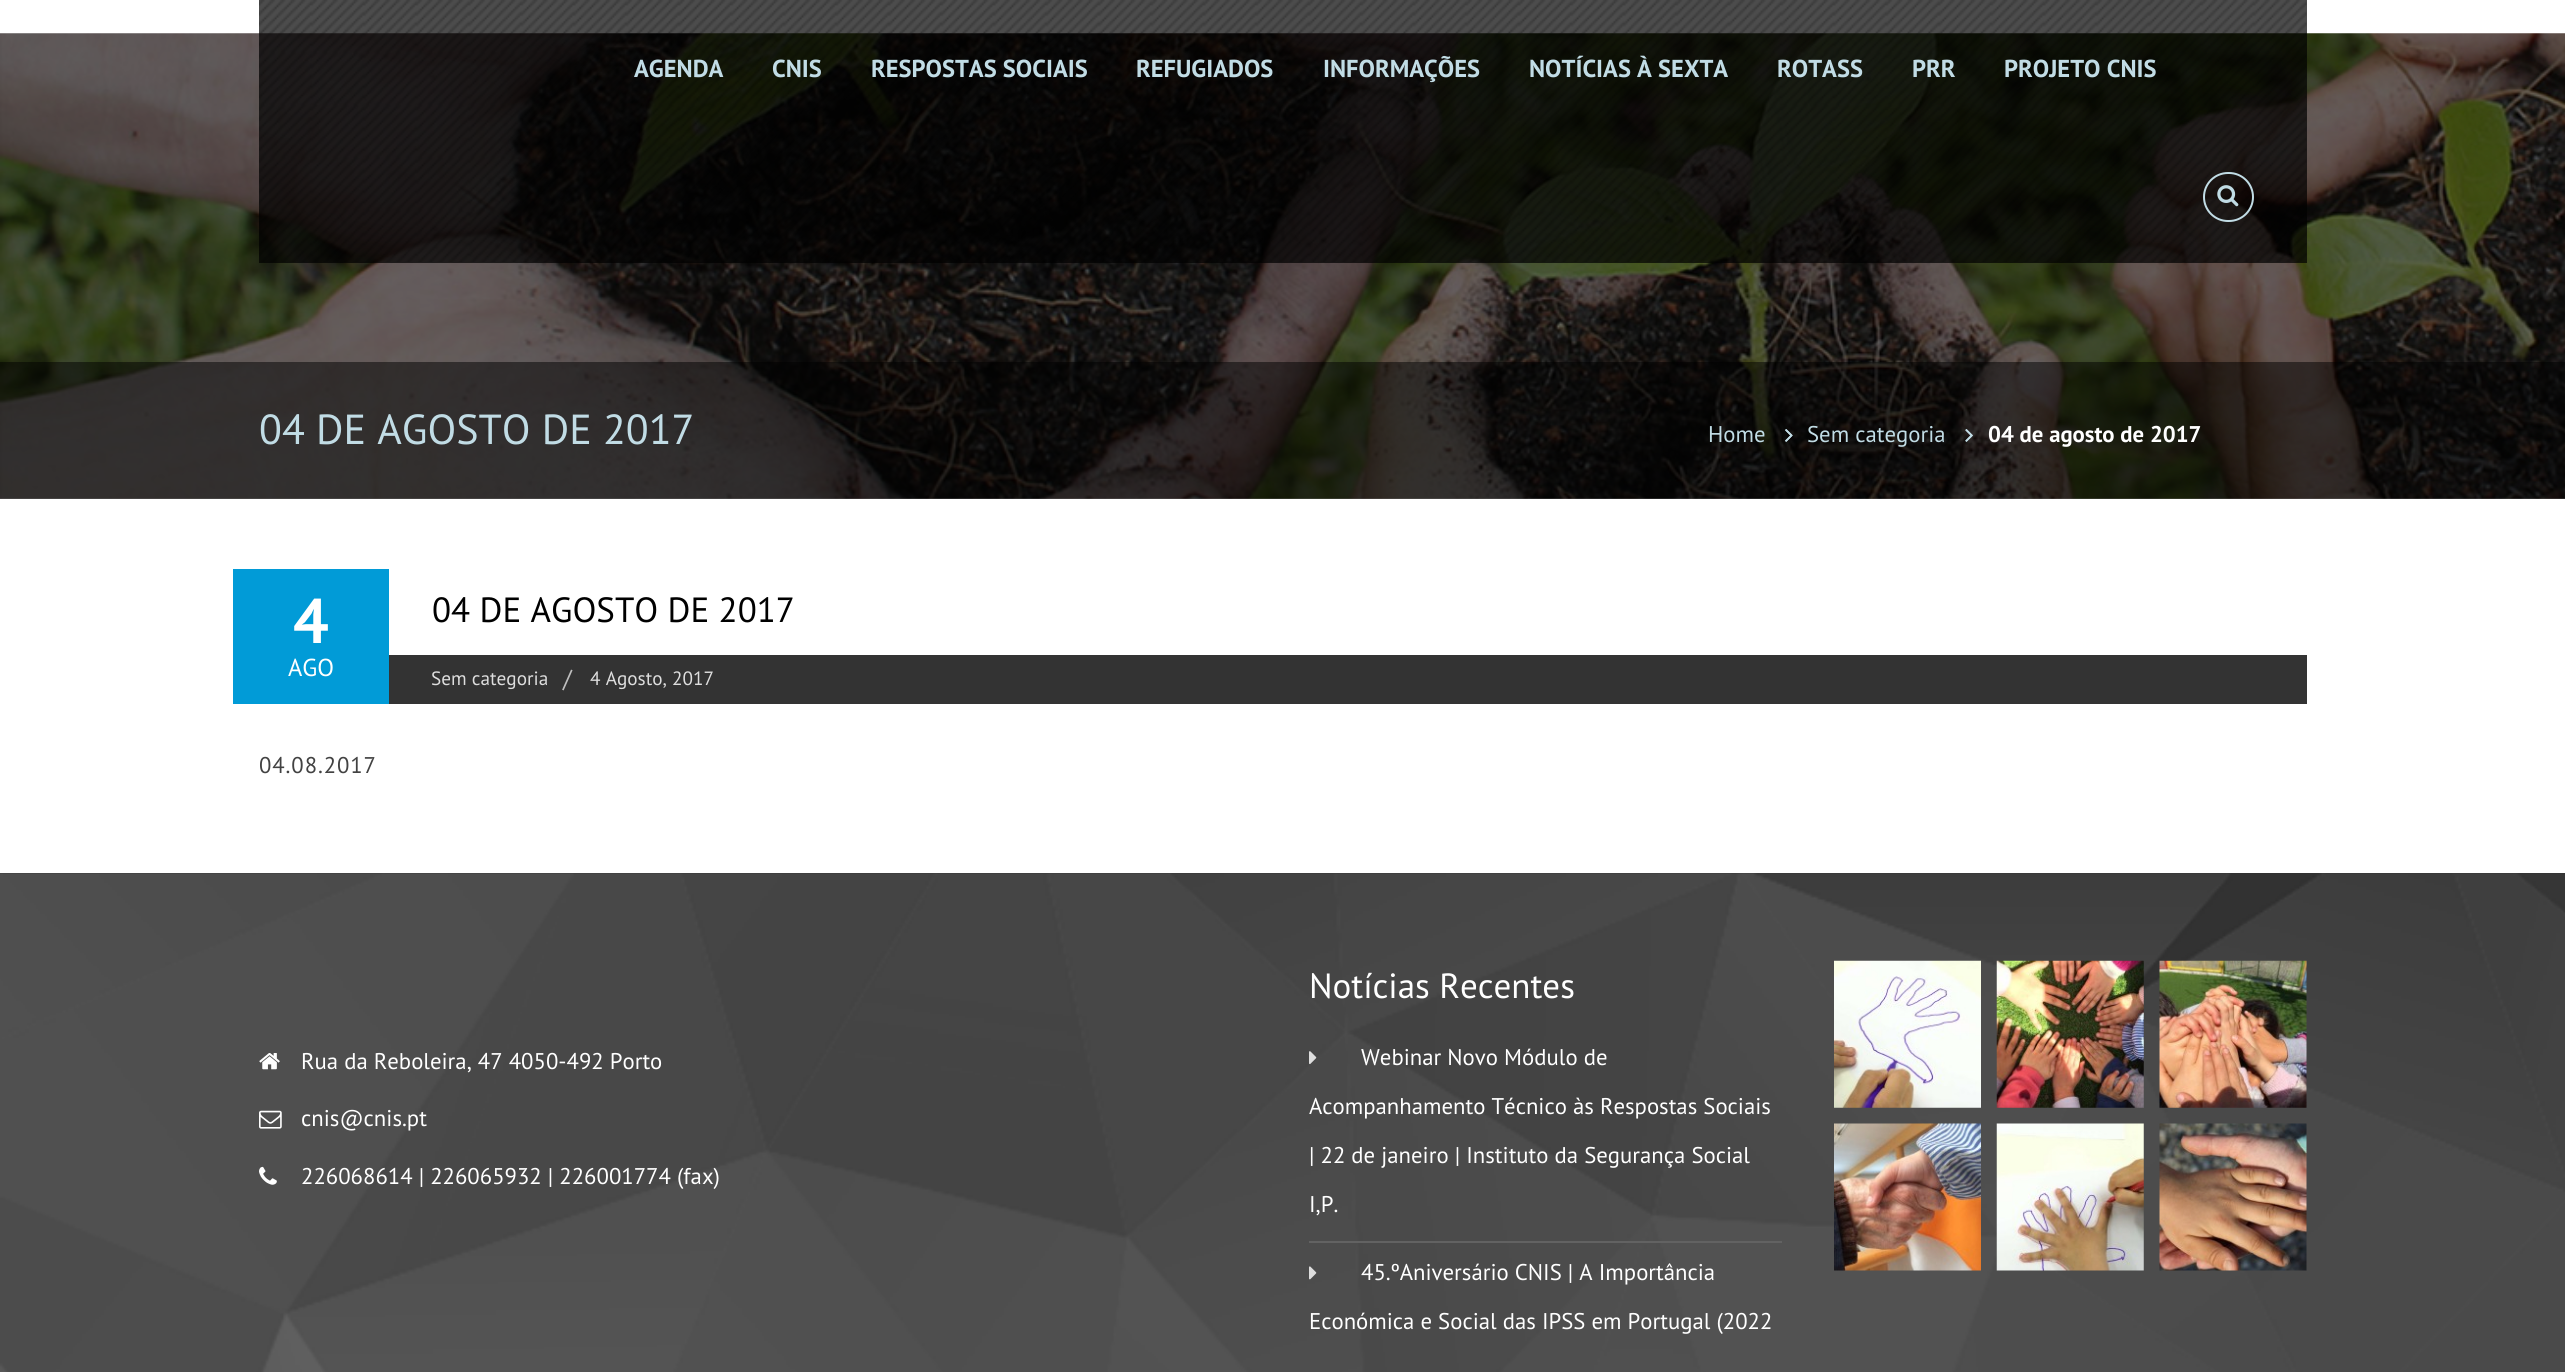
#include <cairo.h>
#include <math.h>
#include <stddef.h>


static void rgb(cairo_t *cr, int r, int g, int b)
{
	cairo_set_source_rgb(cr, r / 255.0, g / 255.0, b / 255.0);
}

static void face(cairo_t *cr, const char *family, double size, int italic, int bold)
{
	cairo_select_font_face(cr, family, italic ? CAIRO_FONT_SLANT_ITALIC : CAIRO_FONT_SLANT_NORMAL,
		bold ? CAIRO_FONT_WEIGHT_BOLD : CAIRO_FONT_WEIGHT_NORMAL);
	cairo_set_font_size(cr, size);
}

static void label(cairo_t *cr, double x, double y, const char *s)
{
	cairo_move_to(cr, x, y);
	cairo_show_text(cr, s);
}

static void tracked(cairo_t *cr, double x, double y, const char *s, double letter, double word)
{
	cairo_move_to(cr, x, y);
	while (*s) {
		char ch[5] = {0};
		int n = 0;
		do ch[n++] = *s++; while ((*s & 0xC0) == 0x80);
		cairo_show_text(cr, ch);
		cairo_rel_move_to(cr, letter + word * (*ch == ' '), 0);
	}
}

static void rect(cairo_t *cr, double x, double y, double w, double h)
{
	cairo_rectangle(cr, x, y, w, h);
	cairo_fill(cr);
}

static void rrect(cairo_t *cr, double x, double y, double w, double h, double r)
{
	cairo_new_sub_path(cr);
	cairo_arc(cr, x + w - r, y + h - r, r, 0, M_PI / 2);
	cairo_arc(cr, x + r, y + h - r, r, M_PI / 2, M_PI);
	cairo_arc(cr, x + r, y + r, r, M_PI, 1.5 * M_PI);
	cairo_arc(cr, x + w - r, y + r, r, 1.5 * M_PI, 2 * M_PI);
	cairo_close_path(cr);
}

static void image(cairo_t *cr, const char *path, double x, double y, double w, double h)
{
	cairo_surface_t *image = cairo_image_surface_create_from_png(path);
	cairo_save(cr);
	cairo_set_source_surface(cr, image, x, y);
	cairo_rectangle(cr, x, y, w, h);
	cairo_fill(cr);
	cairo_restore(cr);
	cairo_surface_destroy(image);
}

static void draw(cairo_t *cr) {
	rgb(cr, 255, 255, 255);
	cairo_paint(cr);
	image(cr, "image2.png", 0, 33, 2565, 466);
	cairo_set_source_rgba(cr, 0, 0, 0, 0.7);
	rect(cr, 259, 0, 2048, 263);
	image(cr, "image0.png", 259, 0, 2048, 262);
	face(cr, "PT Sans", 24.5, 0, 1);
	rgb(cr, 193, 220, 229);
	label(cr, 634, 77, "AGENDA");
	label(cr, 772, 77, "CNIS");
	label(cr, 871, 77, "RESPOSTAS SOCIAIS");
	label(cr, 1136, 77, "REFUGIADOS");
	label(cr, 1323, 77, "INFORMAÇÕES");
	label(cr, 1529, 77, "NOTÍCIAS À SEXTA");
	label(cr, 1777, 77, "ROTASS");
	label(cr, 1912, 77, "PRR");
	label(cr, 2004, 77, "PROJETO CNIS");
	rrect(cr, 2204, 173, 49, 48, 24);
	cairo_stroke(cr);
	image(cr, "image1.png", 2217, 185, 22, 22);
	cairo_set_source_rgba(cr, 0, 0, 0, 0.5);
	rect(cr, 0, 362, 2565, 137);
	face(cr, "PT Sans", 42, 0, 0);
	rgb(cr, 193, 220, 229);
	label(cr, 259, 444, "04 DE AGOSTO DE 2017");
	face(cr, "PT Sans", 22.75, 0, 0);
	label(cr, 1708, 442, "Home");
	image(cr, "image3.png", 1785, 429, 8, 13);
	image(cr, "image4.png", 1785, 429, 8, 13);
	label(cr, 1807, 442, "Sem categoria");
	image(cr, "image5.png", 1965, 429, 8, 13);
	image(cr, "image6.png", 1965, 429, 8, 13);
	face(cr, "PT Sans", 22.75, 0, 1);
	rgb(cr, 255, 255, 255);
	label(cr, 1988, 442, "04 de agosto de 2017");
	rgb(cr, 1, 155, 215);
	rect(cr, 233, 569, 156, 135);
	face(cr, "PT Sans", 63, 0, 1);
	rgb(cr, 255, 255, 255);
	label(cr, 293, 643, "4");
	face(cr, "PT Sans", 24.5, 0, 0);
	label(cr, 288, 676, "AGO");
	face(cr, "PT Sans", 35, 0, 0);
	rgb(cr, 0, 0, 0);
	label(cr, 432, 622, "04 DE AGOSTO DE 2017");
	rgb(cr, 51, 51, 51);
	rect(cr, 389, 655, 1918, 49);
	face(cr, "PT Sans", 19.25, 0, 0);
	rgb(cr, 222, 222, 222);
	label(cr, 431, 685, "Sem categoria");
	face(cr, "PT Sans", 24.5, 0, 0);
	rgb(cr, 191, 191, 191);
	label(cr, 563, 687, "/");
	face(cr, "PT Sans", 19.25, 0, 0);
	rgb(cr, 222, 222, 222);
	label(cr, 590, 685, "4 Agosto, 2017");
	face(cr, "PT Sans", 22.75, 0, 0);
	rgb(cr, 66, 66, 66);
	tracked(cr, 259, 773, "04.08.2017", 0.9, 0);
	rgb(cr, 51, 51, 51);
	rect(cr, 0, 873, 2565, 499);
	image(cr, "image7.png", 0, 873, 2565, 499);
	image(cr, "image8.png", 259, 1053, 21, 17);
	rgb(cr, 255, 255, 255);
	label(cr, 301, 1069, "Rua da Reboleira, 47 4050-492 Porto");
	image(cr, "image9.png", 259, 1110, 23, 19);
	label(cr, 301, 1126, "cnis@cnis.pt");
	image(cr, "image10.png", 259, 1166, 18, 19);
	label(cr, 301, 1184, "226068614 | 226065932 | 226001774 (fax)");
	face(cr, "PT Sans", 35, 0, 0);
	label(cr, 1309, 998, "Notícias Recentes");
	rgb(cr, 98, 98, 98);
	rect(cr, 1309, 1241, 473, 2);
	image(cr, "image11.png", 1309, 1051, 8, 14);
	face(cr, "PT Sans", 22.75, 0, 0);
	rgb(cr, 255, 255, 255);
	label(cr, 1361, 1065, "Webinar Novo Módulo de");
	label(cr, 1309, 1114, "Acompanhamento Técnico às Respostas Sociais");
	label(cr, 1309, 1163, "| 22 de janeiro | Instituto da Segurança Social");
	label(cr, 1309, 1212, "I,P.");
	image(cr, "image12.png", 1309, 1266, 8, 14);
	label(cr, 1361, 1280, "45.ºAniversário CNIS | A Importância");
	label(cr, 1309, 1329, "Económica e Social das IPSS em Portugal (2022");
	image(cr, "image13.png", 1834, 960, 147, 148);
	image(cr, "image14.png", 1996, 960, 148, 148);
	image(cr, "image15.png", 2159, 960, 148, 148);
	image(cr, "image16.png", 1834, 1123, 147, 148);
	image(cr, "image17.png", 1996, 1123, 148, 148);
	image(cr, "image18.png", 2159, 1123, 148, 148);
}

int main(void) {
	cairo_surface_t *surface = cairo_image_surface_create(CAIRO_FORMAT_RGB24, 2565, 1372);
	cairo_t *cr = cairo_create(surface);
	cairo_font_options_t *options = cairo_font_options_create();
	cairo_font_options_set_hint_metrics(options, CAIRO_HINT_METRICS_OFF);
	cairo_font_options_set_hint_style(options, CAIRO_HINT_STYLE_NONE);
	cairo_set_font_options(cr, options);
	cairo_set_miter_limit(cr, 4);
	draw(cr);
	cairo_surface_write_to_png(surface, "render.png");
	cairo_font_options_destroy(options);
	cairo_destroy(cr);
	cairo_surface_destroy(surface);
	return 0;
}
